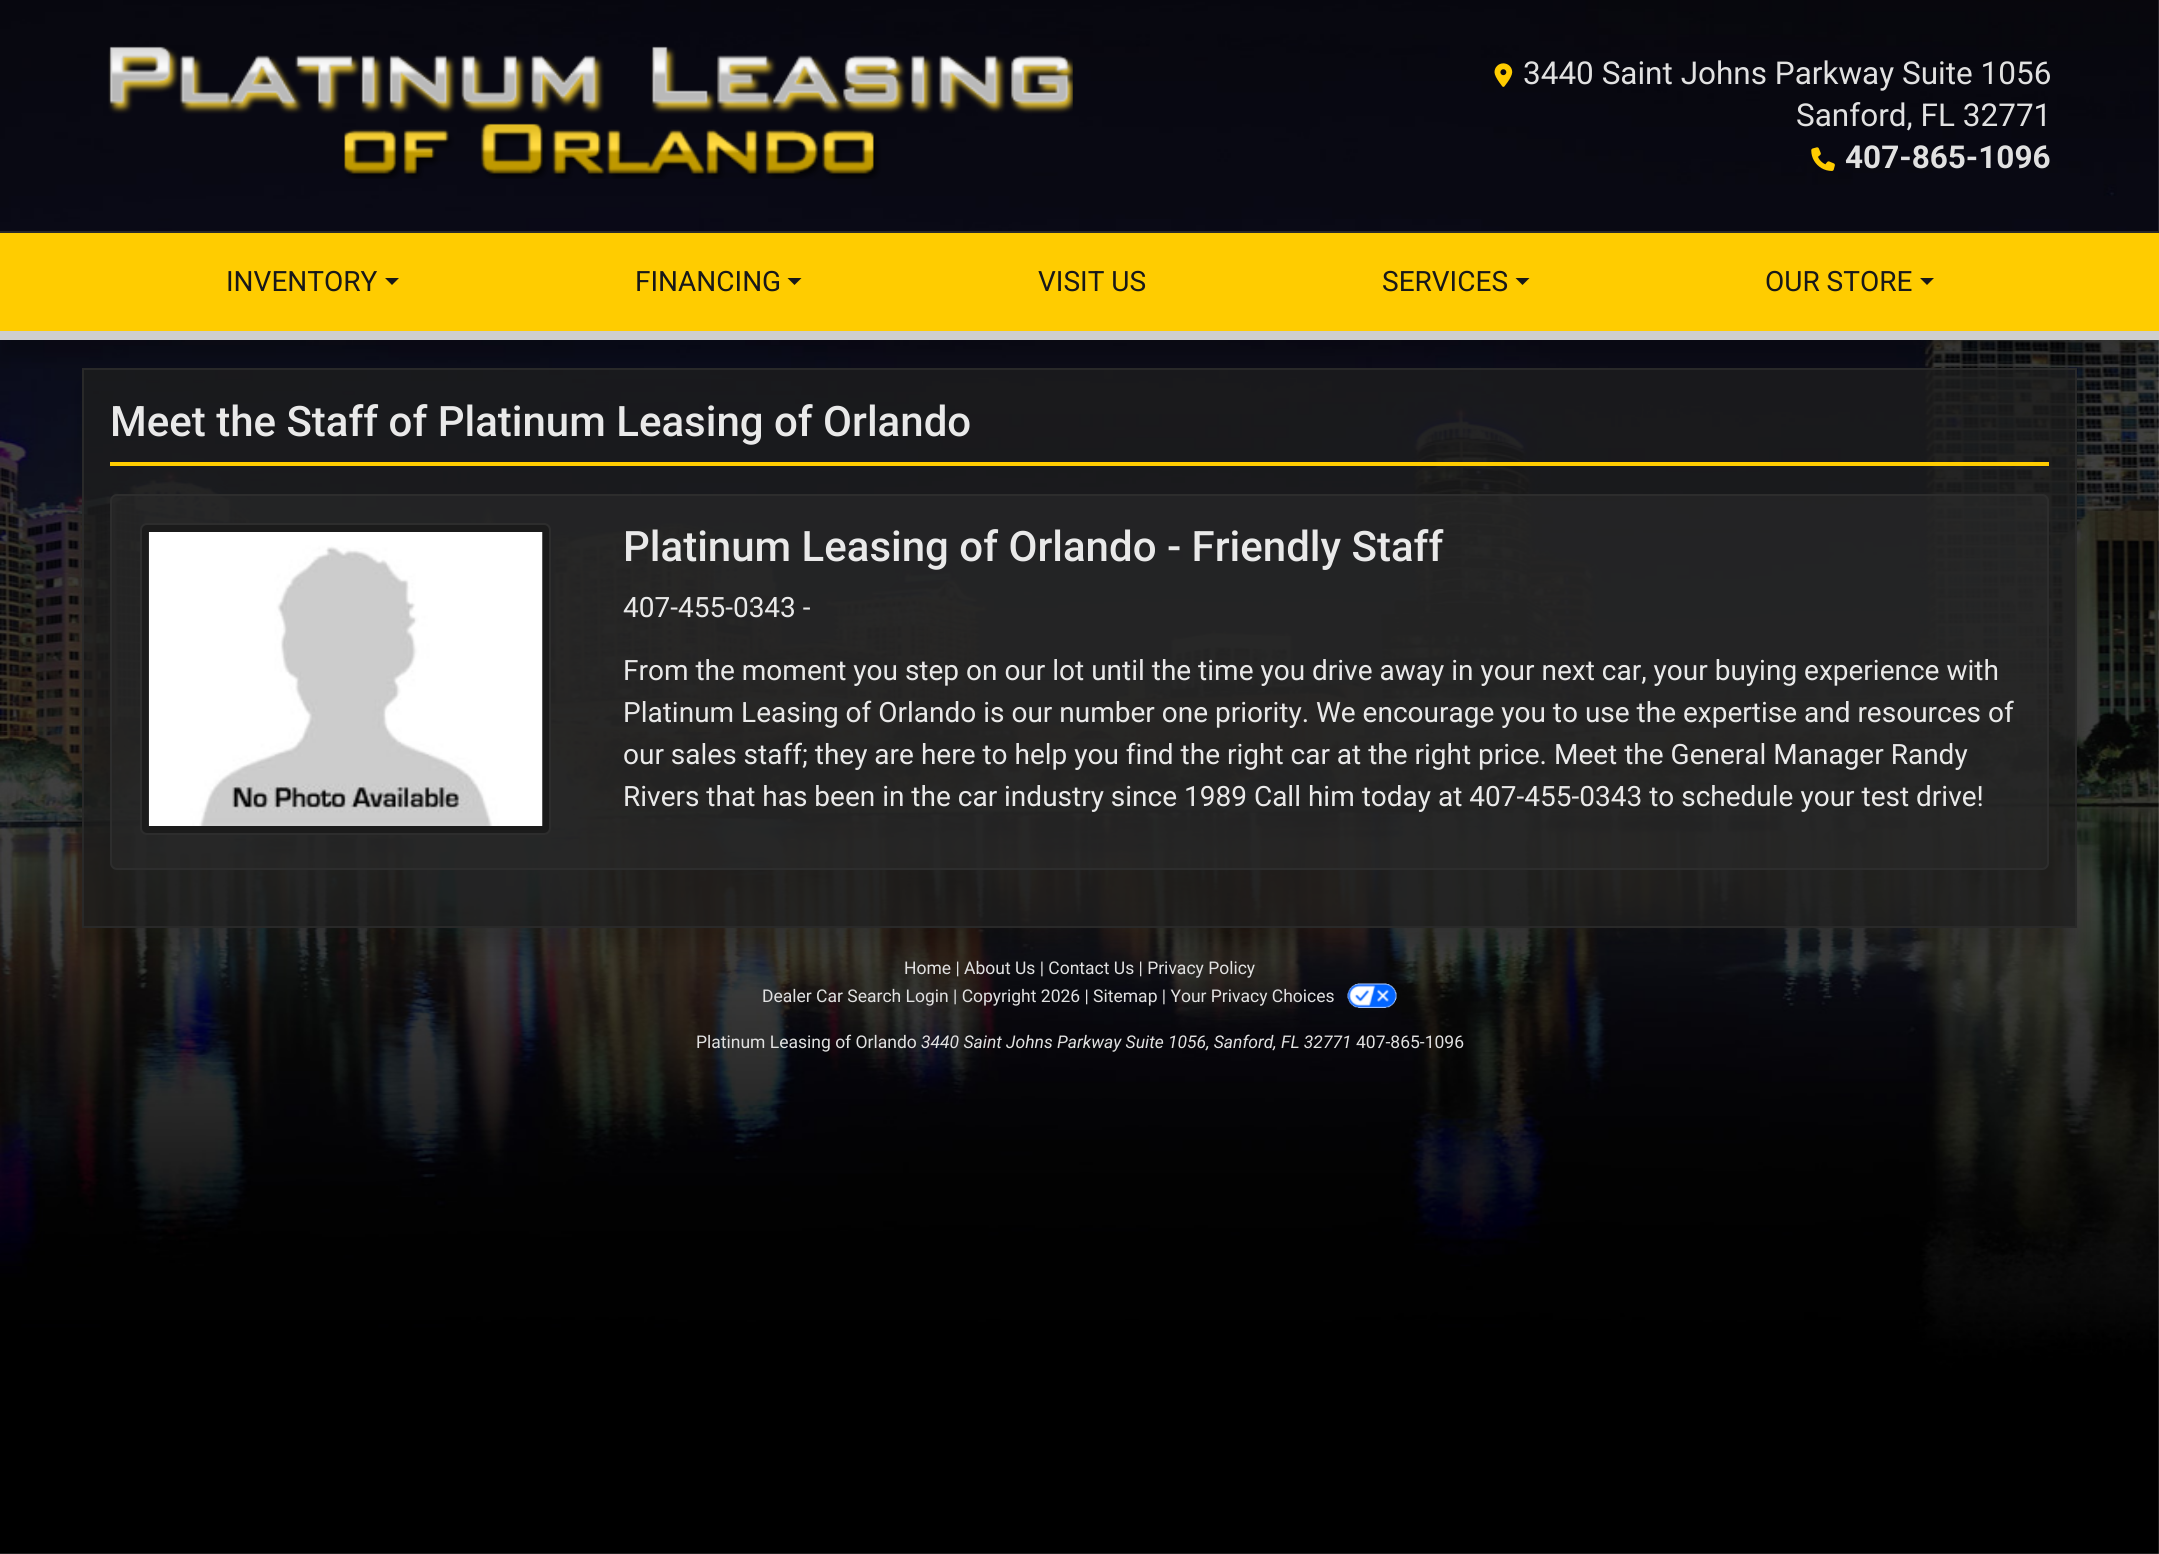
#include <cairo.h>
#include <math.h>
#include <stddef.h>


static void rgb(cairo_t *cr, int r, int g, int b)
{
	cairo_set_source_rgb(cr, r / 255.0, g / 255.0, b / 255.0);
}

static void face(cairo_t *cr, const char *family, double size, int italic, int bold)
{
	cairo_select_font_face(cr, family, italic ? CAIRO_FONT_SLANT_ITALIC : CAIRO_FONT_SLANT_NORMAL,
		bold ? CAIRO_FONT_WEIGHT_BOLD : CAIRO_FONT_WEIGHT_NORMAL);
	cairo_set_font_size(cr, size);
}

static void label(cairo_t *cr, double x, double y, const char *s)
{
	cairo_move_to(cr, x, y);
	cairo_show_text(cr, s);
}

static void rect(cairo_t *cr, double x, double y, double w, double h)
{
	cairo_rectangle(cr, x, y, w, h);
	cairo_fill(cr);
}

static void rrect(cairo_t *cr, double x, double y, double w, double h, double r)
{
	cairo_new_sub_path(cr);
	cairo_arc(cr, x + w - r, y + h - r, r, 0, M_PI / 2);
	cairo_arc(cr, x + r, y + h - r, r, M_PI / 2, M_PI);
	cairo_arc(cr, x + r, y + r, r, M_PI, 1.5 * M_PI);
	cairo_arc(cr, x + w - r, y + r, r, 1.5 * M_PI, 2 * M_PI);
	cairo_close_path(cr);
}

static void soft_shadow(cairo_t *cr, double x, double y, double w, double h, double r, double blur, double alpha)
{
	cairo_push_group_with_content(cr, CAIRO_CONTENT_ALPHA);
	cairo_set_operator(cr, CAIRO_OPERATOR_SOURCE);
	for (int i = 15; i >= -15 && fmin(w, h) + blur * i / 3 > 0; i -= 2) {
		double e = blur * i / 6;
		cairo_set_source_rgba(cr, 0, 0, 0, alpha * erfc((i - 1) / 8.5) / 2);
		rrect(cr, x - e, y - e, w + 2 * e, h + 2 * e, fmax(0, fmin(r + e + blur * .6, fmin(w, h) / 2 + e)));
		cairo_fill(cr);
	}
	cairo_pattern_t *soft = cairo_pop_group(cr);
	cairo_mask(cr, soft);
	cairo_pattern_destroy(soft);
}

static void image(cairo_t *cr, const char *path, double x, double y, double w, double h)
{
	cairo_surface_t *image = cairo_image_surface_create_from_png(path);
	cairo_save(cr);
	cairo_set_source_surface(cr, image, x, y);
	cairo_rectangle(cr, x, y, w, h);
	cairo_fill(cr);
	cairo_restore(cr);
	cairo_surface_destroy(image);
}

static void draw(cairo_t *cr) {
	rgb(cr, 255, 255, 255);
	cairo_paint(cr);
	image(cr, "image0.png", 0, 0, 2159, 1554);
	image(cr, "image1.png", 108, 46, 965, 133);
	image(cr, "image2.png", 1494, 63, 19, 24);
	face(cr, "Roboto", 31.5, 0, 0);
	rgb(cr, 225, 225, 225);
	label(cr, 1523, 84, "3440 Saint Johns Parkway Suite 1056");
	label(cr, 1796, 126, "Sanford, FL 32771");
	image(cr, "image3.png", 1811, 147, 24, 24);
	face(cr, "Roboto", 31.5, 0, 1);
	label(cr, 1845, 168, "407-865-1096");
	rgb(cr, 0, 0, 0);
	soft_shadow(cr, 0, 249, 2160, 108, 0, 9, 0.2);
	rgb(cr, 255, 204, 0);
	rect(cr, 0, 233, 2159, 98);
	rgb(cr, 41, 41, 41);
	rect(cr, 0, 231, 2159, 2);
	rgb(cr, 206, 206, 206);
	rect(cr, 0, 331, 2159, 9);
	face(cr, "Roboto", 28, 0, 0);
	rgb(cr, 24, 24, 24);
	label(cr, 226, 291, "INVENTORY");
	cairo_new_path(cr);
	cairo_move_to(cr, 385, 278);
	cairo_line_to(cr, 399, 278);
	cairo_line_to(cr, 392, 285);
	cairo_close_path(cr);
	cairo_fill(cr);
	label(cr, 635, 291, "FINANCING");
	cairo_new_path(cr);
	cairo_move_to(cr, 787.5, 278);
	cairo_line_to(cr, 801.5, 278);
	cairo_line_to(cr, 794.5, 285);
	cairo_close_path(cr);
	cairo_fill(cr);
	label(cr, 1038, 291, "VISIT US");
	label(cr, 1382, 291, "SERVICES");
	cairo_new_path(cr);
	cairo_move_to(cr, 1515.5, 278);
	cairo_line_to(cr, 1529.5, 278);
	cairo_line_to(cr, 1522.5, 285);
	cairo_close_path(cr);
	cairo_fill(cr);
	label(cr, 1765, 291, "OUR STORE");
	cairo_new_path(cr);
	cairo_move_to(cr, 1920, 278);
	cairo_line_to(cr, 1934, 278);
	cairo_line_to(cr, 1927, 285);
	cairo_close_path(cr);
	cairo_fill(cr);
	cairo_save(cr);
	cairo_set_fill_rule(cr, CAIRO_FILL_RULE_EVEN_ODD);
	cairo_new_path(cr);
	cairo_move_to(cr, 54, 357);
	cairo_line_to(cr, 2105, 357);
	cairo_line_to(cr, 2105, 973);
	cairo_line_to(cr, 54, 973);
	cairo_close_path(cr);
	cairo_move_to(cr, 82, 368);
	cairo_line_to(cr, 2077, 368);
	cairo_line_to(cr, 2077, 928);
	cairo_line_to(cr, 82, 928);
	cairo_close_path(cr);
	cairo_clip(cr);
	rgb(cr, 0, 0, 0);
	soft_shadow(cr, 82, 385, 1995, 560, 0, 9, 0.2);
	cairo_restore(cr);
	cairo_set_source_rgba(cr, 0.114, 0.114, 0.114, 0.8);
	cairo_rectangle(cr, 83, 369, 1993, 558);
	cairo_fill_preserve(cr);
	rgb(cr, 41, 41, 41);
	cairo_stroke(cr);
	rgb(cr, 255, 204, 0);
	rect(cr, 110, 462, 1939, 4);
	face(cr, "Roboto Medium", 42, 0, 0);
	rgb(cr, 233, 233, 233);
	label(cr, 110, 436, "Meet the Staff of Platinum Leasing of Orlando");
	cairo_set_source_rgba(cr, 0.165, 0.165, 0.165, 0.6);
	rrect(cr, 111, 495, 1937, 374, 6);
	cairo_fill_preserve(cr);
	rgb(cr, 45, 45, 45);
	cairo_stroke(cr);
	rgb(cr, 27, 27, 27);
	rrect(cr, 141, 524, 409, 310, 6);
	cairo_fill_preserve(cr);
	rgb(cr, 45, 45, 45);
	cairo_stroke(cr);
	image(cr, "image4.png", 148, 532, 395, 294);
	rgb(cr, 233, 233, 233);
	label(cr, 623, 561, "Platinum Leasing of Orlando - Friendly Staff");
	face(cr, "Roboto", 28, 0, 0);
	label(cr, 623, 617, "407-455-0343 -");
	label(cr, 623, 680, "From the moment you step on our lot until the time you drive away in your next car, your buying experience with");
	label(cr, 623, 722, "Platinum Leasing of Orlando is our number one priority. We encourage you to use the expertise and resources of");
	label(cr, 623, 764, "our sales staff; they are here to help you find the right car at the right price. Meet the General Manager Randy");
	label(cr, 623, 806, "Rivers that has been in the car industry since 1989 Call him today at 407-455-0343 to schedule your test drive!");
	face(cr, "Roboto", 17.5, 0, 0);
	rgb(cr, 225, 225, 225);
	label(cr, 904, 974, "Home | About Us | Contact Us | Privacy Policy");
	label(cr, 762, 1002, "Dealer Car Search Login | Copyright 2026 | Sitemap | Your Privacy Choices");
	image(cr, "image5.png", 1347, 983, 50, 25);
	label(cr, 696, 1048, "Platinum Leasing of Orlando");
	face(cr, "Roboto", 17.5, 1, 0);
	label(cr, 921, 1048, "3440 Saint Johns Parkway Suite 1056, Sanford, FL 32771");
	face(cr, "Roboto", 17.5, 0, 0);
	label(cr, 1356, 1048, "407-865-1096");
}

int main(void) {
	cairo_surface_t *surface = cairo_image_surface_create(CAIRO_FORMAT_RGB24, 2159, 1554);
	cairo_t *cr = cairo_create(surface);
	cairo_font_options_t *options = cairo_font_options_create();
	cairo_font_options_set_hint_metrics(options, CAIRO_HINT_METRICS_OFF);
	cairo_font_options_set_hint_style(options, CAIRO_HINT_STYLE_NONE);
	cairo_set_font_options(cr, options);
	cairo_set_miter_limit(cr, 4);
	draw(cr);
	cairo_surface_write_to_png(surface, "render.png");
	cairo_font_options_destroy(options);
	cairo_destroy(cr);
	cairo_surface_destroy(surface);
	return 0;
}
